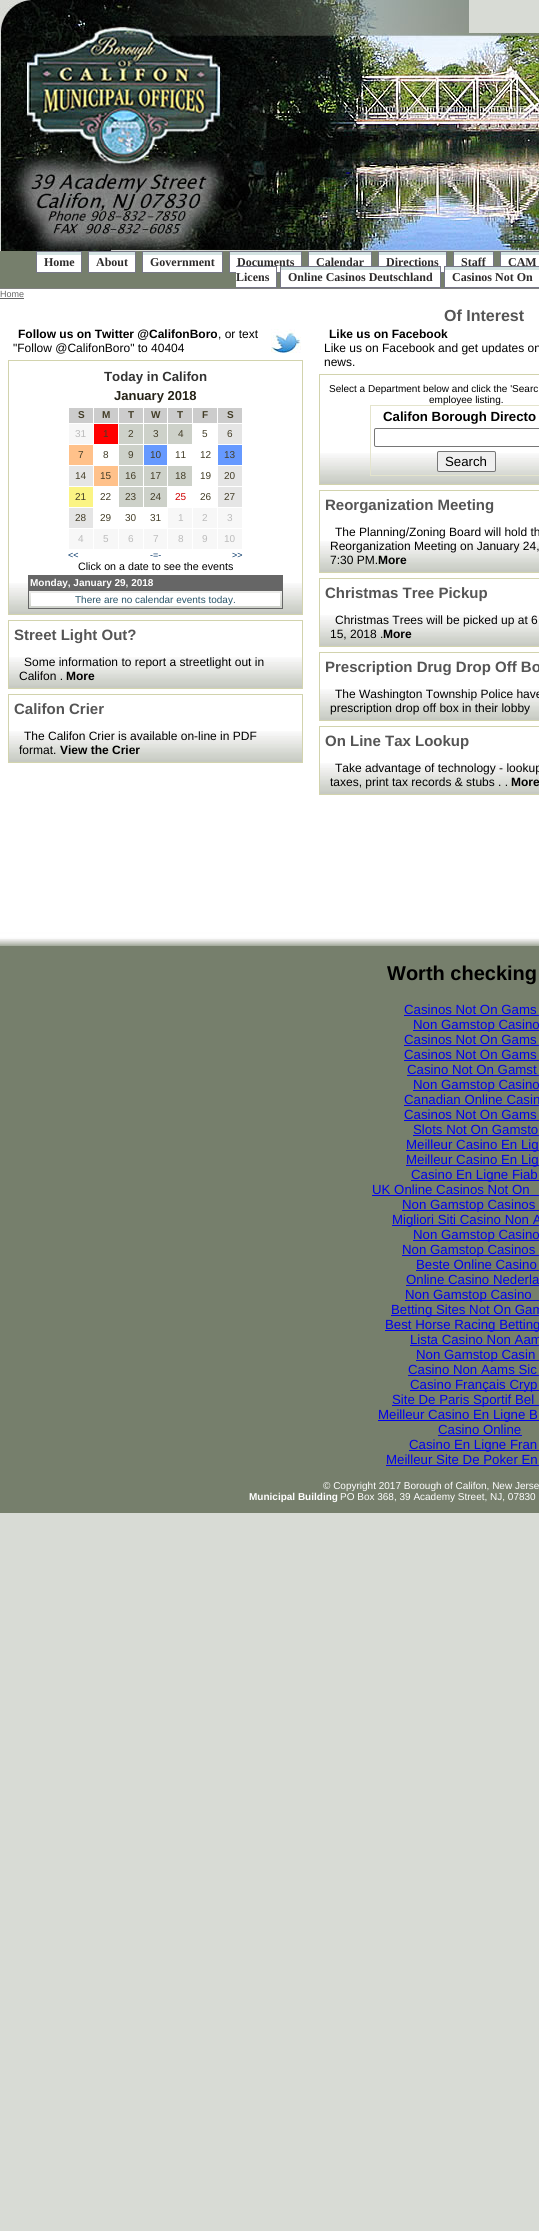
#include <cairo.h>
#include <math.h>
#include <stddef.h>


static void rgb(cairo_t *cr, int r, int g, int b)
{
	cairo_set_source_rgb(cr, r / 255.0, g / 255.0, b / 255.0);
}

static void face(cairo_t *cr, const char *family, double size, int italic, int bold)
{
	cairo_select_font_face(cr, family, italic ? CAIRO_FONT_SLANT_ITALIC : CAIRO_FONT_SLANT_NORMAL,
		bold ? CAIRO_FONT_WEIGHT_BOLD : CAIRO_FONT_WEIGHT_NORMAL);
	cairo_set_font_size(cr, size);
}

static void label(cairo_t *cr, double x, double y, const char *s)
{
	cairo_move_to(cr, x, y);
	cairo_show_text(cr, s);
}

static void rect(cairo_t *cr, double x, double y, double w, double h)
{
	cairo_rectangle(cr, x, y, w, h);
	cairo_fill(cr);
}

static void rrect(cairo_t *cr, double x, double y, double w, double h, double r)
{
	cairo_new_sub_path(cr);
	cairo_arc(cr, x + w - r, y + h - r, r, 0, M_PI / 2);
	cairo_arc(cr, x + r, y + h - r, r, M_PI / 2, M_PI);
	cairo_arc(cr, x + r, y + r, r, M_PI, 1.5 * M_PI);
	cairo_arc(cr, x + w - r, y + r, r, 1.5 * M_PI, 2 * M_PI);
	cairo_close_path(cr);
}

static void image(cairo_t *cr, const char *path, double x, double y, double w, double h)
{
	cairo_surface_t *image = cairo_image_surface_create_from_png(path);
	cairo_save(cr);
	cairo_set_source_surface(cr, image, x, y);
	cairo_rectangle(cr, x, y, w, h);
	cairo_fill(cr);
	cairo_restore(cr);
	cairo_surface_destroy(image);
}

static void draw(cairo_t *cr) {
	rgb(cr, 216, 219, 213);
	cairo_paint(cr);
	image(cr, "image0.png", 0, 0, 469, 33);
	image(cr, "image1.png", 0, 33, 539, 218);
	rgb(cr, 118, 127, 108);
	rect(cr, 0, 251, 500, 37);
	rgb(cr, 128, 128, 128);
	rect(cr, 0, 288, 539, 1);
	rgb(cr, 255, 255, 255);
	rect(cr, 37, 255, 44, 17);
	rgb(cr, 211, 227, 226);
	rect(cr, 36, 252, 46, 3);
	cairo_rectangle(cr, 36.5, 251.5, 45, 21);
	rgb(cr, 119, 119, 136);
	cairo_set_line_width(cr, 1);
	cairo_stroke(cr);
	face(cr, "Liberation Serif", 12, 0, 1);
	rgb(cr, 45, 43, 43);
	label(cr, 44, 266, "Home");
	rgb(cr, 255, 255, 255);
	rect(cr, 89, 255, 46, 17);
	rgb(cr, 211, 227, 226);
	rect(cr, 88, 252, 48, 3);
	cairo_rectangle(cr, 88.5, 251.5, 47, 21);
	rgb(cr, 119, 119, 136);
	cairo_stroke(cr);
	rgb(cr, 45, 43, 43);
	label(cr, 96, 266, "About");
	rgb(cr, 255, 255, 255);
	rect(cr, 143, 255, 79, 17);
	rgb(cr, 211, 227, 226);
	rect(cr, 142, 252, 81, 3);
	cairo_rectangle(cr, 142.5, 251.5, 80, 21);
	rgb(cr, 119, 119, 136);
	cairo_stroke(cr);
	rgb(cr, 45, 43, 43);
	label(cr, 150, 266, "Government");
	rgb(cr, 255, 255, 255);
	rect(cr, 230, 255, 71, 17);
	rgb(cr, 211, 227, 226);
	rect(cr, 229, 252, 73, 3);
	cairo_rectangle(cr, 229.5, 251.5, 72, 21);
	rgb(cr, 119, 119, 136);
	cairo_stroke(cr);
	rgb(cr, 45, 43, 43);
	label(cr, 237, 266, "Documents");
	rgb(cr, 255, 255, 255);
	rect(cr, 309, 255, 62, 11);
	rgb(cr, 211, 227, 226);
	rect(cr, 308, 252, 64, 3);
	cairo_rectangle(cr, 308.5, 251.5, 63, 21);
	rgb(cr, 119, 119, 136);
	cairo_stroke(cr);
	rgb(cr, 45, 43, 43);
	label(cr, 316, 266, "Calendar");
	rgb(cr, 255, 255, 255);
	rect(cr, 379, 255, 67, 17);
	rgb(cr, 211, 227, 226);
	rect(cr, 378, 252, 69, 3);
	cairo_rectangle(cr, 378.5, 251.5, 68, 21);
	rgb(cr, 119, 119, 136);
	cairo_stroke(cr);
	rgb(cr, 45, 43, 43);
	label(cr, 386, 266, "Directions");
	rgb(cr, 255, 255, 255);
	rect(cr, 454, 255, 39, 11);
	rgb(cr, 211, 227, 226);
	rect(cr, 453, 252, 41, 3);
	cairo_rectangle(cr, 453.5, 251.5, 40, 21);
	rgb(cr, 119, 119, 136);
	cairo_stroke(cr);
	rgb(cr, 45, 43, 43);
	label(cr, 461, 266, "Staff");
	rgb(cr, 255, 255, 255);
	rect(cr, 501, 255, 38, 11);
	rgb(cr, 211, 227, 226);
	rect(cr, 500, 252, 39, 3);
	cairo_rectangle(cr, 500.5, 251.5, 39, 21);
	rgb(cr, 119, 119, 136);
	cairo_stroke(cr);
	rgb(cr, 45, 43, 43);
	label(cr, 508, 266, "CAM");
	rgb(cr, 255, 255, 255);
	rect(cr, 236, 272, 40, 15);
	rgb(cr, 45, 43, 43);
	label(cr, 236, 281, "Licens");
	rgb(cr, 119, 119, 136);
	rect(cr, 236, 266, 41, 1);
	rect(cr, 276, 266, 1, 22);
	rect(cr, 236, 287, 41, 1);
	rgb(cr, 255, 255, 255);
	rect(cr, 281, 270, 159, 17);
	rgb(cr, 211, 227, 226);
	rect(cr, 280, 267, 161, 3);
	cairo_rectangle(cr, 280.5, 266.5, 160, 21);
	rgb(cr, 119, 119, 136);
	cairo_stroke(cr);
	rgb(cr, 45, 43, 43);
	label(cr, 288, 281, "Online Casinos Deutschland");
	rgb(cr, 255, 255, 255);
	rect(cr, 445, 270, 94, 17);
	rgb(cr, 211, 227, 226);
	rect(cr, 444, 267, 95, 3);
	cairo_rectangle(cr, 444.5, 266.5, 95, 21);
	rgb(cr, 119, 119, 136);
	cairo_stroke(cr);
	rgb(cr, 45, 43, 43);
	label(cr, 452, 281, "Casinos Not On");
	rgb(cr, 255, 255, 255);
	rect(cr, 0, 289, 539, 642);
	face(cr, "Liberation Sans", 9, 0, 0);
	rgb(cr, 102, 102, 102);
	label(cr, 0, 297, "Home");
	rect(cr, 0, 298, 24, 1);
	face(cr, "Liberation Sans", 16, 0, 1);
	rgb(cr, 85, 85, 85);
	label(cr, 444, 321, "Of Interest");
	face(cr, "Liberation Sans", 12, 0, 1);
	rgb(cr, 0, 0, 0);
	label(cr, 18, 338, "Follow us on Twitter @CalifonBoro");
	face(cr, "Liberation Sans", 12, 0, 0);
	label(cr, 218, 338, ", or text");
	image(cr, "image2.png", 271, 329, 30, 24);
	label(cr, 13, 352, "\"Follow @CalifonBoro\" to 40404");
	image(cr, "image3.png", 9, 583, 293, 31);
	cairo_rectangle(cr, 8.5, 360.5, 294, 254);
	rgb(cr, 210, 211, 173);
	cairo_stroke(cr);
	face(cr, "Liberation Sans", 13.25, 0, 1);
	rgb(cr, 51, 51, 51);
	label(cr, 104, 381, "Today in Califon");
	face(cr, "Liberation Sans", 13, 0, 1);
	rgb(cr, 37, 34, 22);
	label(cr, 114, 400, "January 2018");
	rgb(cr, 204, 204, 204);
	rect(cr, 69, 408, 24, 15);
	face(cr, "Liberation Sans", 10, 0, 1);
	rgb(cr, 67, 61, 39);
	label(cr, 78, 418, "S");
	rgb(cr, 204, 204, 204);
	rect(cr, 94, 408, 24, 15);
	rgb(cr, 67, 61, 39);
	label(cr, 102, 418, "M");
	rgb(cr, 204, 204, 204);
	rect(cr, 119, 408, 24, 15);
	rgb(cr, 67, 61, 39);
	label(cr, 128, 418, "T");
	rgb(cr, 204, 204, 204);
	rect(cr, 144, 408, 23, 15);
	rgb(cr, 67, 61, 39);
	label(cr, 151, 418, "W");
	rgb(cr, 204, 204, 204);
	rect(cr, 168, 408, 24, 15);
	rgb(cr, 67, 61, 39);
	label(cr, 177, 418, "T");
	rgb(cr, 204, 204, 204);
	rect(cr, 193, 408, 24, 15);
	rgb(cr, 67, 61, 39);
	label(cr, 202, 418, "F");
	rgb(cr, 204, 204, 204);
	rect(cr, 218, 408, 24, 15);
	rgb(cr, 67, 61, 39);
	label(cr, 227, 418, "S");
	rgb(cr, 247, 247, 247);
	rect(cr, 69, 424, 24, 20);
	face(cr, "Liberation Sans", 10, 0, 0);
	rgb(cr, 187, 187, 187);
	label(cr, 75, 437, "31");
	rgb(cr, 255, 0, 0);
	rect(cr, 94, 424, 24, 20);
	rgb(cr, 67, 61, 39);
	label(cr, 103, 437, "1");
	rgb(cr, 205, 209, 201);
	rect(cr, 119, 424, 24, 20);
	rgb(cr, 67, 61, 39);
	label(cr, 128, 437, "2");
	rgb(cr, 205, 209, 201);
	rect(cr, 144, 424, 23, 20);
	rgb(cr, 67, 61, 39);
	label(cr, 153, 437, "3");
	rgb(cr, 205, 209, 201);
	rect(cr, 168, 424, 24, 20);
	rgb(cr, 67, 61, 39);
	label(cr, 178, 437, "4");
	label(cr, 202, 437, "5");
	rgb(cr, 229, 229, 229);
	rect(cr, 218, 424, 24, 20);
	rgb(cr, 67, 61, 39);
	label(cr, 227, 437, "6");
	rgb(cr, 255, 193, 138);
	rect(cr, 69, 445, 24, 20);
	rgb(cr, 67, 61, 39);
	label(cr, 78, 458, "7");
	label(cr, 103, 458, "8");
	rgb(cr, 205, 209, 201);
	rect(cr, 119, 445, 24, 20);
	rgb(cr, 67, 61, 39);
	label(cr, 128, 458, "9");
	rgb(cr, 102, 153, 255);
	rect(cr, 144, 445, 23, 20);
	rgb(cr, 67, 61, 39);
	label(cr, 150, 458, "10");
	label(cr, 175, 458, "11");
	label(cr, 200, 458, "12");
	rgb(cr, 102, 153, 255);
	rect(cr, 218, 445, 24, 20);
	rgb(cr, 67, 61, 39);
	label(cr, 224, 458, "13");
	rgb(cr, 229, 229, 229);
	rect(cr, 69, 466, 24, 20);
	rgb(cr, 67, 61, 39);
	label(cr, 75, 479, "14");
	rgb(cr, 255, 193, 138);
	rect(cr, 94, 466, 24, 20);
	rgb(cr, 67, 61, 39);
	label(cr, 100, 479, "15");
	rgb(cr, 205, 209, 201);
	rect(cr, 119, 466, 24, 20);
	rgb(cr, 67, 61, 39);
	label(cr, 125, 479, "16");
	rgb(cr, 205, 209, 201);
	rect(cr, 144, 466, 23, 20);
	rgb(cr, 67, 61, 39);
	label(cr, 150, 479, "17");
	rgb(cr, 205, 209, 201);
	rect(cr, 168, 466, 24, 20);
	rgb(cr, 67, 61, 39);
	label(cr, 175, 479, "18");
	label(cr, 200, 479, "19");
	rgb(cr, 229, 229, 229);
	rect(cr, 218, 466, 24, 20);
	rgb(cr, 67, 61, 39);
	label(cr, 224, 479, "20");
	rgb(cr, 251, 244, 132);
	rect(cr, 69, 487, 24, 20);
	rgb(cr, 67, 61, 39);
	label(cr, 75, 500, "21");
	label(cr, 100, 500, "22");
	rgb(cr, 205, 209, 201);
	rect(cr, 119, 487, 24, 20);
	rgb(cr, 67, 61, 39);
	label(cr, 125, 500, "23");
	rgb(cr, 205, 209, 201);
	rect(cr, 144, 487, 23, 20);
	rgb(cr, 67, 61, 39);
	label(cr, 150, 500, "24");
	rgb(cr, 207, 0, 0);
	label(cr, 175, 500, "25");
	rgb(cr, 67, 61, 39);
	label(cr, 200, 500, "26");
	rgb(cr, 229, 229, 229);
	rect(cr, 218, 487, 24, 20);
	rgb(cr, 67, 61, 39);
	label(cr, 224, 500, "27");
	rgb(cr, 229, 229, 229);
	rect(cr, 69, 508, 24, 20);
	rgb(cr, 67, 61, 39);
	label(cr, 75, 521, "28");
	label(cr, 100, 521, "29");
	label(cr, 125, 521, "30");
	label(cr, 150, 521, "31");
	rgb(cr, 247, 247, 247);
	rect(cr, 168, 508, 24, 20);
	rgb(cr, 187, 187, 187);
	label(cr, 178, 521, "1");
	rgb(cr, 247, 247, 247);
	rect(cr, 193, 508, 24, 20);
	rgb(cr, 187, 187, 187);
	label(cr, 202, 521, "2");
	rgb(cr, 247, 247, 247);
	rect(cr, 218, 508, 24, 20);
	rgb(cr, 187, 187, 187);
	label(cr, 227, 521, "3");
	rgb(cr, 247, 247, 247);
	rect(cr, 69, 529, 24, 20);
	rgb(cr, 187, 187, 187);
	label(cr, 78, 542, "4");
	rgb(cr, 247, 247, 247);
	rect(cr, 94, 529, 24, 20);
	rgb(cr, 187, 187, 187);
	label(cr, 103, 542, "5");
	rgb(cr, 247, 247, 247);
	rect(cr, 119, 529, 24, 20);
	rgb(cr, 187, 187, 187);
	label(cr, 128, 542, "6");
	rgb(cr, 247, 247, 247);
	rect(cr, 144, 529, 23, 20);
	rgb(cr, 187, 187, 187);
	label(cr, 153, 542, "7");
	rgb(cr, 247, 247, 247);
	rect(cr, 168, 529, 24, 20);
	rgb(cr, 187, 187, 187);
	label(cr, 178, 542, "8");
	rgb(cr, 247, 247, 247);
	rect(cr, 193, 529, 24, 20);
	rgb(cr, 187, 187, 187);
	label(cr, 202, 542, "9");
	rgb(cr, 247, 247, 247);
	rect(cr, 218, 529, 24, 20);
	rgb(cr, 187, 187, 187);
	label(cr, 224, 542, "10");
	face(cr, "Liberation Sans", 9, 0, 0);
	rgb(cr, 0, 51, 102);
	label(cr, 68, 558, "<<");
	label(cr, 150, 558, "-=-");
	label(cr, 232, 558, ">>");
	face(cr, "Liberation Sans", 10.7, 0, 0);
	rgb(cr, 0, 0, 0);
	label(cr, 78, 570, "Click on a date to see the events");
	rgb(cr, 102, 102, 102);
	rect(cr, 28, 575, 255, 15);
	face(cr, "Liberation Sans", 10, 0, 1);
	rgb(cr, 255, 255, 255);
	label(cr, 30, 586, "Monday, January 29, 2018");
	cairo_rectangle(cr, 28.5, 590.5, 254, 18);
	rgb(cr, 102, 102, 102);
	cairo_stroke(cr);
	rgb(cr, 255, 255, 255);
	rect(cr, 31, 593, 249, 13);
	face(cr, "Liberation Sans", 10, 0, 0);
	rgb(cr, 41, 85, 105);
	label(cr, 75, 603, "There are no calendar events today.");
	image(cr, "image3.png", 9, 657, 293, 31);
	cairo_rectangle(cr, 8.5, 620.5, 294, 68);
	rgb(cr, 210, 211, 173);
	cairo_stroke(cr);
	face(cr, "Liberation Sans", 15, 0, 1);
	rgb(cr, 85, 85, 85);
	label(cr, 14, 640, "Street Light Out?");
	face(cr, "Liberation Sans", 12, 0, 0);
	rgb(cr, 0, 0, 0);
	label(cr, 24, 666, "Some information to report a streetlight out in");
	label(cr, 19, 680, "Califon .");
	face(cr, "Liberation Sans", 12, 0, 1);
	label(cr, 66, 680, "More");
	image(cr, "image3.png", 9, 731, 293, 31);
	cairo_rectangle(cr, 8.5, 694.5, 294, 68);
	rgb(cr, 210, 211, 173);
	cairo_stroke(cr);
	face(cr, "Liberation Sans", 15, 0, 1);
	rgb(cr, 85, 85, 85);
	label(cr, 14, 714, "Califon Crier");
	face(cr, "Liberation Sans", 12, 0, 0);
	rgb(cr, 0, 0, 0);
	label(cr, 24, 740, "The Califon Crier is available on-line in PDF");
	label(cr, 19, 754, "format.");
	face(cr, "Liberation Sans", 12, 0, 1);
	label(cr, 60, 754, "View the Crier");
	label(cr, 329, 338, "Like us on Facebook");
	face(cr, "Liberation Sans", 12, 0, 0);
	label(cr, 324, 352, "Like us on Facebook and get updates on");
	label(cr, 324, 366, "news.");
	image(cr, "image4.png", 320, 453, 219, 31);
	cairo_rectangle(cr, 319.5, 374.5, 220, 110);
	rgb(cr, 210, 211, 173);
	cairo_stroke(cr);
	face(cr, "Liberation Sans", 10, 0, 0);
	rgb(cr, 0, 0, 0);
	label(cr, 329, 392, "Select a Department below and click the 'Searc");
	cairo_rectangle(cr, 370.5, 405.5, 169, 70);
	rgb(cr, 228, 228, 205);
	cairo_stroke(cr);
	rgb(cr, 0, 0, 0);
	label(cr, 429, 403, "employee listing.");
	face(cr, "Liberation Sans", 13.25, 0, 1);
	label(cr, 383, 421, "Califon Borough Directo");
	rrect(cr, 374.5, 428.5, 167, 18, 1.5);
	rgb(cr, 118, 118, 118);
	cairo_stroke(cr);
	rgb(cr, 239, 239, 239);
	rrect(cr, 437.5, 451.5, 58, 20, 1.5);
	cairo_fill_preserve(cr);
	rgb(cr, 118, 118, 118);
	cairo_stroke(cr);
	face(cr, "Liberation Sans", 13.25, 0, 0);
	rgb(cr, 0, 0, 0);
	label(cr, 445, 466, "Search");
	image(cr, "image4.png", 320, 541, 219, 31);
	cairo_rectangle(cr, 319.5, 490.5, 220, 82);
	rgb(cr, 210, 211, 173);
	cairo_stroke(cr);
	face(cr, "Liberation Sans", 15, 0, 1);
	rgb(cr, 85, 85, 85);
	label(cr, 325, 510, "Reorganization Meeting");
	face(cr, "Liberation Sans", 12, 0, 0);
	rgb(cr, 0, 0, 0);
	label(cr, 335, 536, "The Planning/Zoning Board will hold th");
	label(cr, 330, 550, "Reorganization Meeting on January 24,");
	label(cr, 330, 564, "7:30 PM.");
	face(cr, "Liberation Sans", 12, 0, 1);
	label(cr, 378, 564, "More");
	image(cr, "image4.png", 320, 615, 219, 31);
	cairo_rectangle(cr, 319.5, 578.5, 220, 68);
	rgb(cr, 210, 211, 173);
	cairo_stroke(cr);
	face(cr, "Liberation Sans", 15, 0, 1);
	rgb(cr, 85, 85, 85);
	label(cr, 325, 598, "Christmas Tree Pickup");
	face(cr, "Liberation Sans", 12, 0, 0);
	rgb(cr, 0, 0, 0);
	label(cr, 335, 624, "Christmas Trees will be picked up at 6");
	label(cr, 330, 638, "15, 2018 .");
	face(cr, "Liberation Sans", 12, 0, 1);
	label(cr, 383, 638, "More");
	image(cr, "image4.png", 320, 689, 219, 31);
	cairo_rectangle(cr, 319.5, 652.5, 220, 68);
	rgb(cr, 210, 211, 173);
	cairo_stroke(cr);
	face(cr, "Liberation Sans", 15, 0, 1);
	rgb(cr, 85, 85, 85);
	label(cr, 325, 672, "Prescription Drug Drop Off Bo");
	face(cr, "Liberation Sans", 12, 0, 0);
	rgb(cr, 0, 0, 0);
	label(cr, 335, 698, "The Washington Township Police have");
	label(cr, 330, 712, "prescription drop off box in their lobby");
	image(cr, "image4.png", 320, 763, 219, 31);
	cairo_rectangle(cr, 319.5, 726.5, 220, 68);
	rgb(cr, 210, 211, 173);
	cairo_stroke(cr);
	face(cr, "Liberation Sans", 15, 0, 1);
	rgb(cr, 85, 85, 85);
	label(cr, 325, 746, "On Line Tax Lookup");
	face(cr, "Liberation Sans", 12, 0, 0);
	rgb(cr, 0, 0, 0);
	label(cr, 335, 772, "Take advantage of technology - lookup");
	label(cr, 330, 786, "taxes, print tax records & stubs . .");
	face(cr, "Liberation Sans", 12, 0, 1);
	label(cr, 511, 786, "More");
	image(cr, "image5.png", 0, 931, 539, 15);
	rgb(cr, 118, 127, 108);
	rect(cr, 0, 946, 539, 567);
	face(cr, "Liberation Sans", 20, 0, 1);
	rgb(cr, 0, 0, 0);
	label(cr, 387, 980, "Worth checking");
	face(cr, "Liberation Sans", 13.25, 0, 0);
	rgb(cr, 0, 0, 238);
	label(cr, 404, 1014, "Casinos Not On Gams");
	rect(cr, 404, 1015, 135, 1);
	rect(cr, 413, 1030, 126, 1);
	label(cr, 413, 1029, "Non Gamstop Casino");
	label(cr, 404, 1044, "Casinos Not On Gams");
	rect(cr, 404, 1045, 135, 1);
	label(cr, 404, 1059, "Casinos Not On Gams");
	rect(cr, 404, 1060, 135, 1);
	label(cr, 407, 1074, "Casino Not On Gamst");
	rect(cr, 407, 1075, 132, 1);
	rect(cr, 413, 1090, 126, 1);
	label(cr, 413, 1089, "Non Gamstop Casino");
	label(cr, 404, 1104, "Canadian Online Casin");
	rect(cr, 404, 1105, 135, 1);
	label(cr, 404, 1119, "Casinos Not On Gams");
	rect(cr, 404, 1120, 135, 1);
	label(cr, 413, 1134, "Slots Not On Gamsto");
	rect(cr, 413, 1135, 126, 1);
	rect(cr, 406, 1150, 133, 1);
	label(cr, 406, 1149, "Meilleur Casino En Lig");
	rect(cr, 406, 1165, 133, 1);
	label(cr, 406, 1164, "Meilleur Casino En Lig");
	rect(cr, 411, 1180, 128, 1);
	label(cr, 411, 1179, "Casino En Ligne Fiab");
	label(cr, 372, 1194, "UK Online Casinos Not On");
	rect(cr, 372, 1195, 167, 1);
	rect(cr, 402, 1210, 137, 1);
	label(cr, 402, 1209, "Non Gamstop Casinos");
	rect(cr, 392, 1225, 147, 1);
	label(cr, 392, 1224, "Migliori Siti Casino Non A");
	rect(cr, 413, 1240, 126, 1);
	label(cr, 413, 1239, "Non Gamstop Casino");
	rect(cr, 402, 1255, 137, 1);
	label(cr, 402, 1254, "Non Gamstop Casinos");
	label(cr, 416, 1269, "Beste Online Casino");
	rect(cr, 416, 1270, 123, 1);
	label(cr, 406, 1284, "Online Casino Nederla");
	rect(cr, 406, 1285, 133, 1);
	rect(cr, 405, 1300, 134, 1);
	label(cr, 405, 1299, "Non Gamstop Casino");
	rect(cr, 391, 1315, 148, 1);
	label(cr, 391, 1314, "Betting Sites Not On Gam");
	rect(cr, 385, 1330, 154, 1);
	label(cr, 385, 1329, "Best Horse Racing Betting");
	label(cr, 410, 1344, "Lista Casino Non Aam");
	rect(cr, 410, 1345, 129, 1);
	rect(cr, 416, 1360, 123, 1);
	label(cr, 416, 1359, "Non Gamstop Casin");
	label(cr, 408, 1374, "Casino Non Aams Sic");
	rect(cr, 408, 1375, 131, 1);
	rect(cr, 410, 1390, 129, 1);
	label(cr, 410, 1389, "Casino Français Cryp");
	rect(cr, 392, 1405, 147, 1);
	label(cr, 392, 1404, "Site De Paris Sportif Bel");
	rect(cr, 378, 1420, 161, 1);
	label(cr, 378, 1419, "Meilleur Casino En Ligne B");
	label(cr, 438, 1434, "Casino Online");
	rect(cr, 438, 1435, 84, 1);
	rect(cr, 409, 1450, 130, 1);
	label(cr, 409, 1449, "Casino En Ligne Fran");
	label(cr, 386, 1464, "Meilleur Site De Poker En");
	rect(cr, 386, 1465, 153, 1);
	face(cr, "Liberation Sans", 10, 0, 0);
	rgb(cr, 255, 255, 255);
	label(cr, 323, 1489, "© Copyright 2017 Borough of Califon, New Jerse");
	face(cr, "Liberation Sans", 10, 0, 1);
	label(cr, 249, 1500, "Municipal Building");
	face(cr, "Liberation Sans", 10, 0, 0);
	label(cr, 340, 1500, "PO Box 368, 39 Academy Street, NJ, 07830");
}

int main(void) {
	cairo_surface_t *surface = cairo_image_surface_create(CAIRO_FORMAT_RGB24, 539, 2231);
	cairo_t *cr = cairo_create(surface);
	cairo_font_options_t *options = cairo_font_options_create();
	cairo_font_options_set_hint_metrics(options, CAIRO_HINT_METRICS_OFF);
	cairo_font_options_set_hint_style(options, CAIRO_HINT_STYLE_NONE);
	cairo_set_font_options(cr, options);
	cairo_set_miter_limit(cr, 4);
	draw(cr);
	cairo_surface_write_to_png(surface, "render.png");
	cairo_font_options_destroy(options);
	cairo_destroy(cr);
	cairo_surface_destroy(surface);
	return 0;
}
